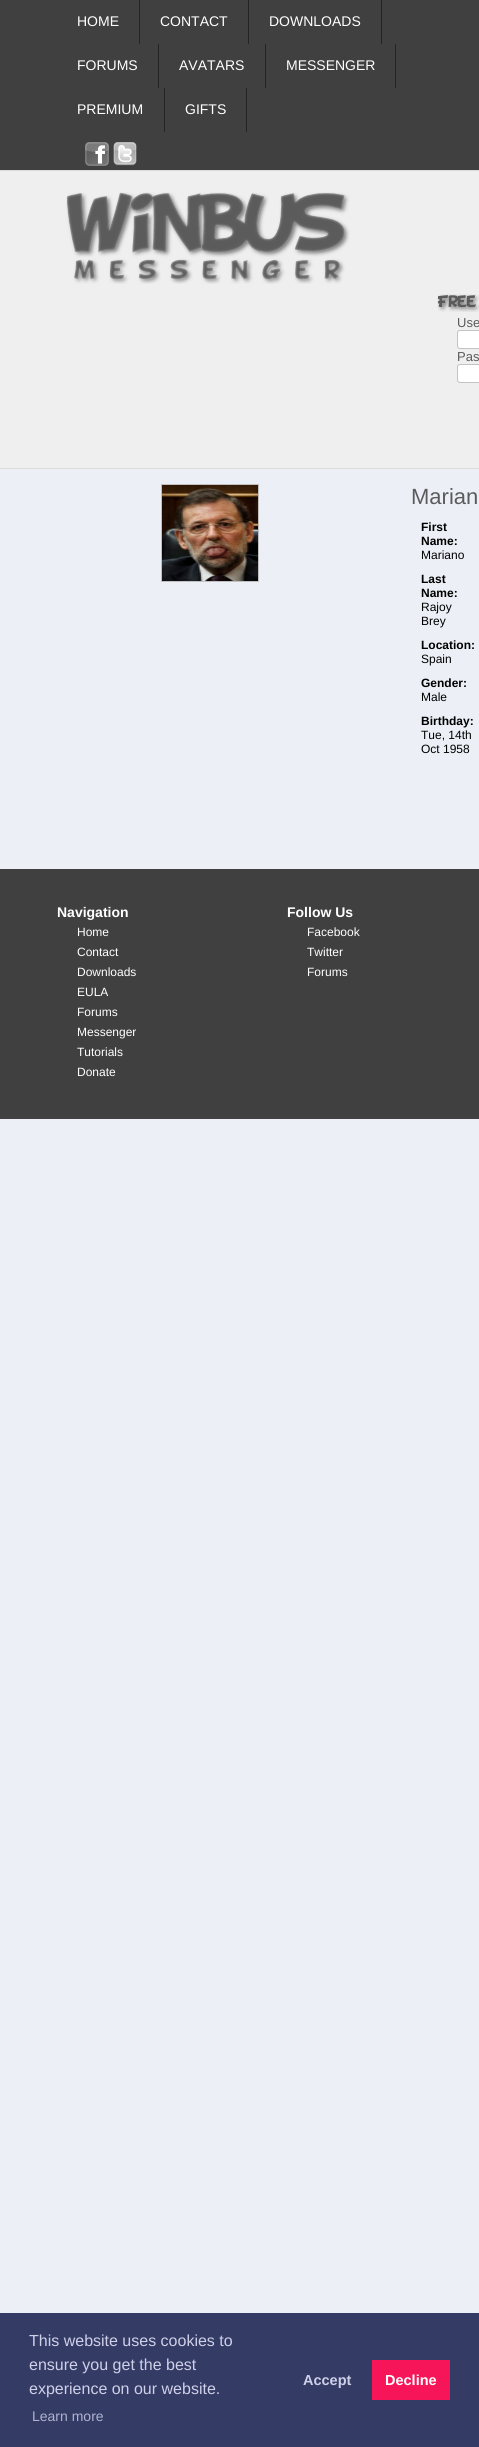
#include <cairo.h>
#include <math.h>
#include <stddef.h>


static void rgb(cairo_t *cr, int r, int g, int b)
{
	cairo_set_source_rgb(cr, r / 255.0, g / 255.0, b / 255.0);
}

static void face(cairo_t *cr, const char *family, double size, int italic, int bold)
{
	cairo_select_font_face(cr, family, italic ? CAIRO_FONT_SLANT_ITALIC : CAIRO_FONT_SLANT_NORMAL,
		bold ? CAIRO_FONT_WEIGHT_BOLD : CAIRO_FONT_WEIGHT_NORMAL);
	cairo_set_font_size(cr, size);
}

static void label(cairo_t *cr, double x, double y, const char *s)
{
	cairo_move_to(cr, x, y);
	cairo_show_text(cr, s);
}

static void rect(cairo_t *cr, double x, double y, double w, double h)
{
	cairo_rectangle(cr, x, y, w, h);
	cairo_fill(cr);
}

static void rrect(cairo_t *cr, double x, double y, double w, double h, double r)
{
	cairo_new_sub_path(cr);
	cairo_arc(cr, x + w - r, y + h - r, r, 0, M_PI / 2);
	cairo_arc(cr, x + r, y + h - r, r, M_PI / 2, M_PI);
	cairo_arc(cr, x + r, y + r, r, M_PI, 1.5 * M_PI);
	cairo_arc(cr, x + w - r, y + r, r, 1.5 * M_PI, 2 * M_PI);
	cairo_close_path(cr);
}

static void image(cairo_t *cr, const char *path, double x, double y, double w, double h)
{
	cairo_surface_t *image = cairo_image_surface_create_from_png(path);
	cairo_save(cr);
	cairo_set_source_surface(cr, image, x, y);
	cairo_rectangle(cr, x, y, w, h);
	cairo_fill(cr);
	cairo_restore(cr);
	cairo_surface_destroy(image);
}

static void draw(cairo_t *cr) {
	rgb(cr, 236, 240, 246);
	cairo_paint(cr);
	rgb(cr, 64, 64, 64);
	rect(cr, 0, 0, 479, 170);
	rgb(cr, 219, 219, 219);
	rect(cr, 0, 170, 479, 1);
	rgb(cr, 36, 36, 36);
	rect(cr, 139, 0, 1, 44);
	face(cr, "Liberation Sans", 14, 0, 0);
	rgb(cr, 255, 255, 255);
	label(cr, 77, 26, "HOME");
	rgb(cr, 36, 36, 36);
	rect(cr, 248, 0, 1, 44);
	rgb(cr, 255, 255, 255);
	label(cr, 160, 26, "CONTACT");
	rgb(cr, 36, 36, 36);
	rect(cr, 381, 0, 1, 44);
	rgb(cr, 255, 255, 255);
	label(cr, 269, 26, "DOWNLOADS");
	rgb(cr, 36, 36, 36);
	rect(cr, 158, 44, 1, 44);
	rgb(cr, 255, 255, 255);
	label(cr, 77, 70, "FORUMS");
	rgb(cr, 36, 36, 36);
	rect(cr, 265, 44, 1, 44);
	rgb(cr, 255, 255, 255);
	label(cr, 179, 70, "AVATARS");
	rgb(cr, 36, 36, 36);
	rect(cr, 395, 44, 1, 44);
	rgb(cr, 255, 255, 255);
	label(cr, 286, 70, "MESSENGER");
	rgb(cr, 36, 36, 36);
	rect(cr, 164, 88, 1, 44);
	rgb(cr, 255, 255, 255);
	label(cr, 77, 114, "PREMIUM");
	rgb(cr, 36, 36, 36);
	rect(cr, 246, 88, 1, 44);
	rgb(cr, 255, 255, 255);
	label(cr, 185, 114, "GIFTS");
	image(cr, "image0.png", 85, 142, 24, 24);
	image(cr, "image1.png", 113, 142, 24, 24);
	rgb(cr, 239, 239, 239);
	rect(cr, 0, 171, 479, 297);
	rgb(cr, 219, 219, 219);
	rect(cr, 0, 468, 479, 1);
	image(cr, "image2.png", 66, 192, 284, 92);
	image(cr, "image3.png", 437, 294, 42, 18);
	face(cr, "Liberation Sans", 13, 0, 0);
	rgb(cr, 91, 91, 91);
	label(cr, 457, 327, "Use");
	rgb(cr, 255, 255, 255);
	rrect(cr, 457.5, 330.5, 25, 18, 2.5);
	cairo_fill_preserve(cr);
	rgb(cr, 195, 195, 195);
	cairo_set_line_width(cr, 1);
	cairo_stroke(cr);
	rgb(cr, 91, 91, 91);
	label(cr, 457, 361, "Pas");
	rgb(cr, 255, 255, 255);
	rrect(cr, 457.5, 364.5, 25, 18, 2.5);
	cairo_fill_preserve(cr);
	rgb(cr, 195, 195, 195);
	cairo_stroke(cr);
	cairo_rectangle(cr, 161.5, 484.5, 97, 97);
	rgb(cr, 192, 192, 192);
	cairo_stroke(cr);
	image(cr, "image4.png", 162, 485, 96, 96);
	face(cr, "Liberation Sans", 22, 0, 0);
	rgb(cr, 91, 91, 91);
	label(cr, 411, 504, "Marian");
	face(cr, "Liberation Sans", 12, 0, 1);
	rgb(cr, 0, 0, 0);
	label(cr, 421, 531, "First");
	label(cr, 421, 545, "Name:");
	face(cr, "Liberation Sans", 12, 0, 0);
	label(cr, 421, 559, "Mariano");
	face(cr, "Liberation Sans", 12, 0, 1);
	label(cr, 421, 583, "Last");
	label(cr, 421, 597, "Name:");
	face(cr, "Liberation Sans", 12, 0, 0);
	label(cr, 421, 611, "Rajoy");
	label(cr, 421, 625, "Brey");
	face(cr, "Liberation Sans", 12, 0, 1);
	label(cr, 421, 649, "Location:");
	face(cr, "Liberation Sans", 12, 0, 0);
	label(cr, 421, 663, "Spain");
	face(cr, "Liberation Sans", 12, 0, 1);
	label(cr, 421, 687, "Gender:");
	face(cr, "Liberation Sans", 12, 0, 0);
	label(cr, 421, 701, "Male");
	face(cr, "Liberation Sans", 12, 0, 1);
	label(cr, 421, 725, "Birthday:");
	face(cr, "Liberation Sans", 12, 0, 0);
	label(cr, 421, 739, "Tue, 14th");
	label(cr, 421, 753, "Oct 1958");
	rgb(cr, 64, 64, 64);
	rect(cr, 0, 869, 479, 250);
	face(cr, "Liberation Sans", 14, 0, 1);
	rgb(cr, 255, 255, 255);
	label(cr, 57, 917, "Navigation");
	face(cr, "Liberation Sans", 12, 0, 0);
	label(cr, 77, 936, "Home");
	label(cr, 77, 956, "Contact");
	label(cr, 77, 976, "Downloads");
	label(cr, 77, 996, "EULA");
	label(cr, 77, 1016, "Forums");
	label(cr, 77, 1036, "Messenger");
	label(cr, 77, 1056, "Tutorials");
	label(cr, 77, 1076, "Donate");
	face(cr, "Liberation Sans", 14, 0, 1);
	label(cr, 287, 917, "Follow Us");
	face(cr, "Liberation Sans", 12, 0, 0);
	label(cr, 307, 936, "Facebook");
	label(cr, 307, 956, "Twitter");
	label(cr, 307, 976, "Forums");
	rgb(cr, 52, 60, 102);
	rect(cr, 0, 2313, 479, 134);
	face(cr, "Liberation Sans", 16, 0, 0);
	rgb(cr, 207, 207, 232);
	label(cr, 29, 2346, "This website uses cookies to");
	label(cr, 29, 2370, "ensure you get the best");
	label(cr, 29, 2394, "experience on our website.");
	face(cr, "Liberation Sans", 14, 0, 0);
	rgb(cr, 176, 178, 206);
	label(cr, 32, 2421, "Learn more");
	face(cr, "Liberation Sans", 14.5, 0, 1);
	rgb(cr, 207, 207, 232);
	label(cr, 303, 2385, "Accept");
	rgb(cr, 247, 21, 89);
	rect(cr, 372, 2360, 78, 40);
	rgb(cr, 255, 255, 255);
	label(cr, 385, 2385, "Decline");
}

int main(void) {
	cairo_surface_t *surface = cairo_image_surface_create(CAIRO_FORMAT_RGB24, 479, 2447);
	cairo_t *cr = cairo_create(surface);
	cairo_font_options_t *options = cairo_font_options_create();
	cairo_font_options_set_hint_metrics(options, CAIRO_HINT_METRICS_OFF);
	cairo_font_options_set_hint_style(options, CAIRO_HINT_STYLE_NONE);
	cairo_set_font_options(cr, options);
	cairo_set_miter_limit(cr, 4);
	draw(cr);
	cairo_surface_write_to_png(surface, "render.png");
	cairo_font_options_destroy(options);
	cairo_destroy(cr);
	cairo_surface_destroy(surface);
	return 0;
}
